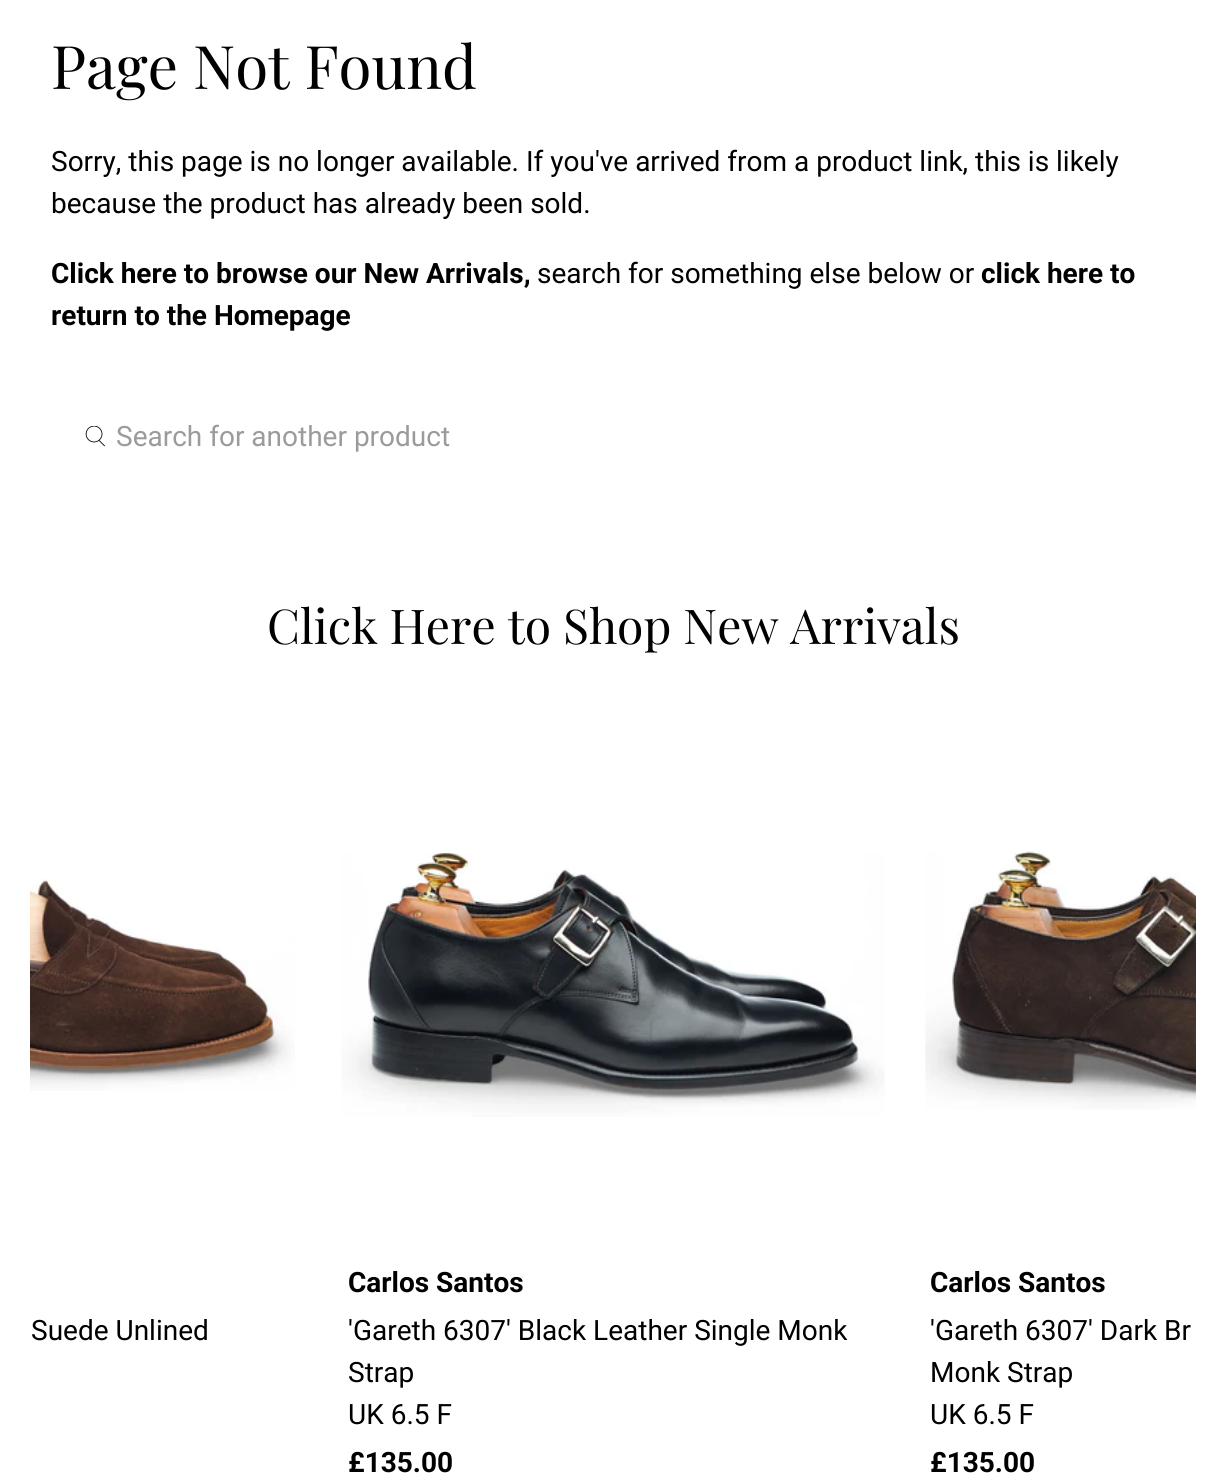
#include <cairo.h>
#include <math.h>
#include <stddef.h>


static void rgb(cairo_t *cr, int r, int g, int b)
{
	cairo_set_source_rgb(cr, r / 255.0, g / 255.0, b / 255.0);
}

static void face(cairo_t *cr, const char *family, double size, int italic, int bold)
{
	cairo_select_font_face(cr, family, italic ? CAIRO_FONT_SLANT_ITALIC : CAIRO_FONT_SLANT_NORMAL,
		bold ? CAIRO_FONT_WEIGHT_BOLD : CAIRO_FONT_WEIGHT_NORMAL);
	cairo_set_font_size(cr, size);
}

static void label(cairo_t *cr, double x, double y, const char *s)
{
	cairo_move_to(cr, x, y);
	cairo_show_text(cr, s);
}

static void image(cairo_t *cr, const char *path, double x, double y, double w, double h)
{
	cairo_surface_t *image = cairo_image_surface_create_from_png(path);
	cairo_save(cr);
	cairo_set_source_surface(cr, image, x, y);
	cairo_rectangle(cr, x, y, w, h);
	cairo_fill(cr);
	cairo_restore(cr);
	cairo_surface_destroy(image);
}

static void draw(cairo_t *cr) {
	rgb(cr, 255, 255, 255);
	cairo_paint(cr);
	face(cr, "Playfair Display", 60, 0, 0);
	rgb(cr, 0, 0, 0);
	label(cr, 51, 89, "Page Not Found");
	face(cr, "Roboto", 28, 0, 0);
	label(cr, 51, 171, "Sorry, this page is no longer available. If you've arrived from a product link, this is likely");
	label(cr, 51, 213, "because the product has already been sold.");
	face(cr, "Roboto", 28, 0, 1);
	label(cr, 51, 283, "Click here to browse our New Arrivals,");
	face(cr, "Roboto", 28, 0, 0);
	label(cr, 537, 283, "search for something else below or");
	face(cr, "Roboto", 28, 0, 1);
	label(cr, 981, 283, "click here to");
	label(cr, 51, 325, "return to the Homepage");
	image(cr, "image0.png", 85, 426, 20, 21);
	face(cr, "Roboto", 28, 0, 0);
	rgb(cr, 155, 155, 155);
	label(cr, 116, 446, "Search for another product");
	face(cr, "Playfair Display", 48, 0, 0);
	rgb(cr, 0, 0, 0);
	label(cr, 267, 644, "Click Here to Shop New Arrivals");
	image(cr, "image1.png", 30, 879, 265, 212);
	face(cr, "Roboto", 28, 0, 0);
	label(cr, 31, 1340, "Suede Unlined");
	image(cr, "image2.png", 341, 852, 544, 265);
	face(cr, "Roboto", 28, 0, 1);
	label(cr, 348, 1292, "Carlos Santos");
	face(cr, "Roboto", 28, 0, 0);
	label(cr, 348, 1340, "'Gareth 6307' Black Leather Single Monk");
	label(cr, 348, 1382, "Strap");
	label(cr, 348, 1424, "UK 6.5 F");
	face(cr, "Roboto", 28, 0, 1);
	label(cr, 348, 1472, "£135.00");
	image(cr, "image3.png", 925, 851, 271, 259);
	label(cr, 930, 1292, "Carlos Santos");
	face(cr, "Roboto", 28, 0, 0);
	label(cr, 930, 1340, "'Gareth 6307' Dark Br");
	label(cr, 930, 1382, "Monk Strap");
	label(cr, 930, 1424, "UK 6.5 F");
	face(cr, "Roboto", 28, 0, 1);
	label(cr, 930, 1472, "£135.00");
}

int main(void) {
	cairo_surface_t *surface = cairo_image_surface_create(CAIRO_FORMAT_RGB24, 1226, 1480);
	cairo_t *cr = cairo_create(surface);
	cairo_font_options_t *options = cairo_font_options_create();
	cairo_font_options_set_hint_metrics(options, CAIRO_HINT_METRICS_OFF);
	cairo_font_options_set_hint_style(options, CAIRO_HINT_STYLE_NONE);
	cairo_set_font_options(cr, options);
	cairo_set_miter_limit(cr, 4);
	draw(cr);
	cairo_surface_write_to_png(surface, "render.png");
	cairo_font_options_destroy(options);
	cairo_destroy(cr);
	cairo_surface_destroy(surface);
	return 0;
}
